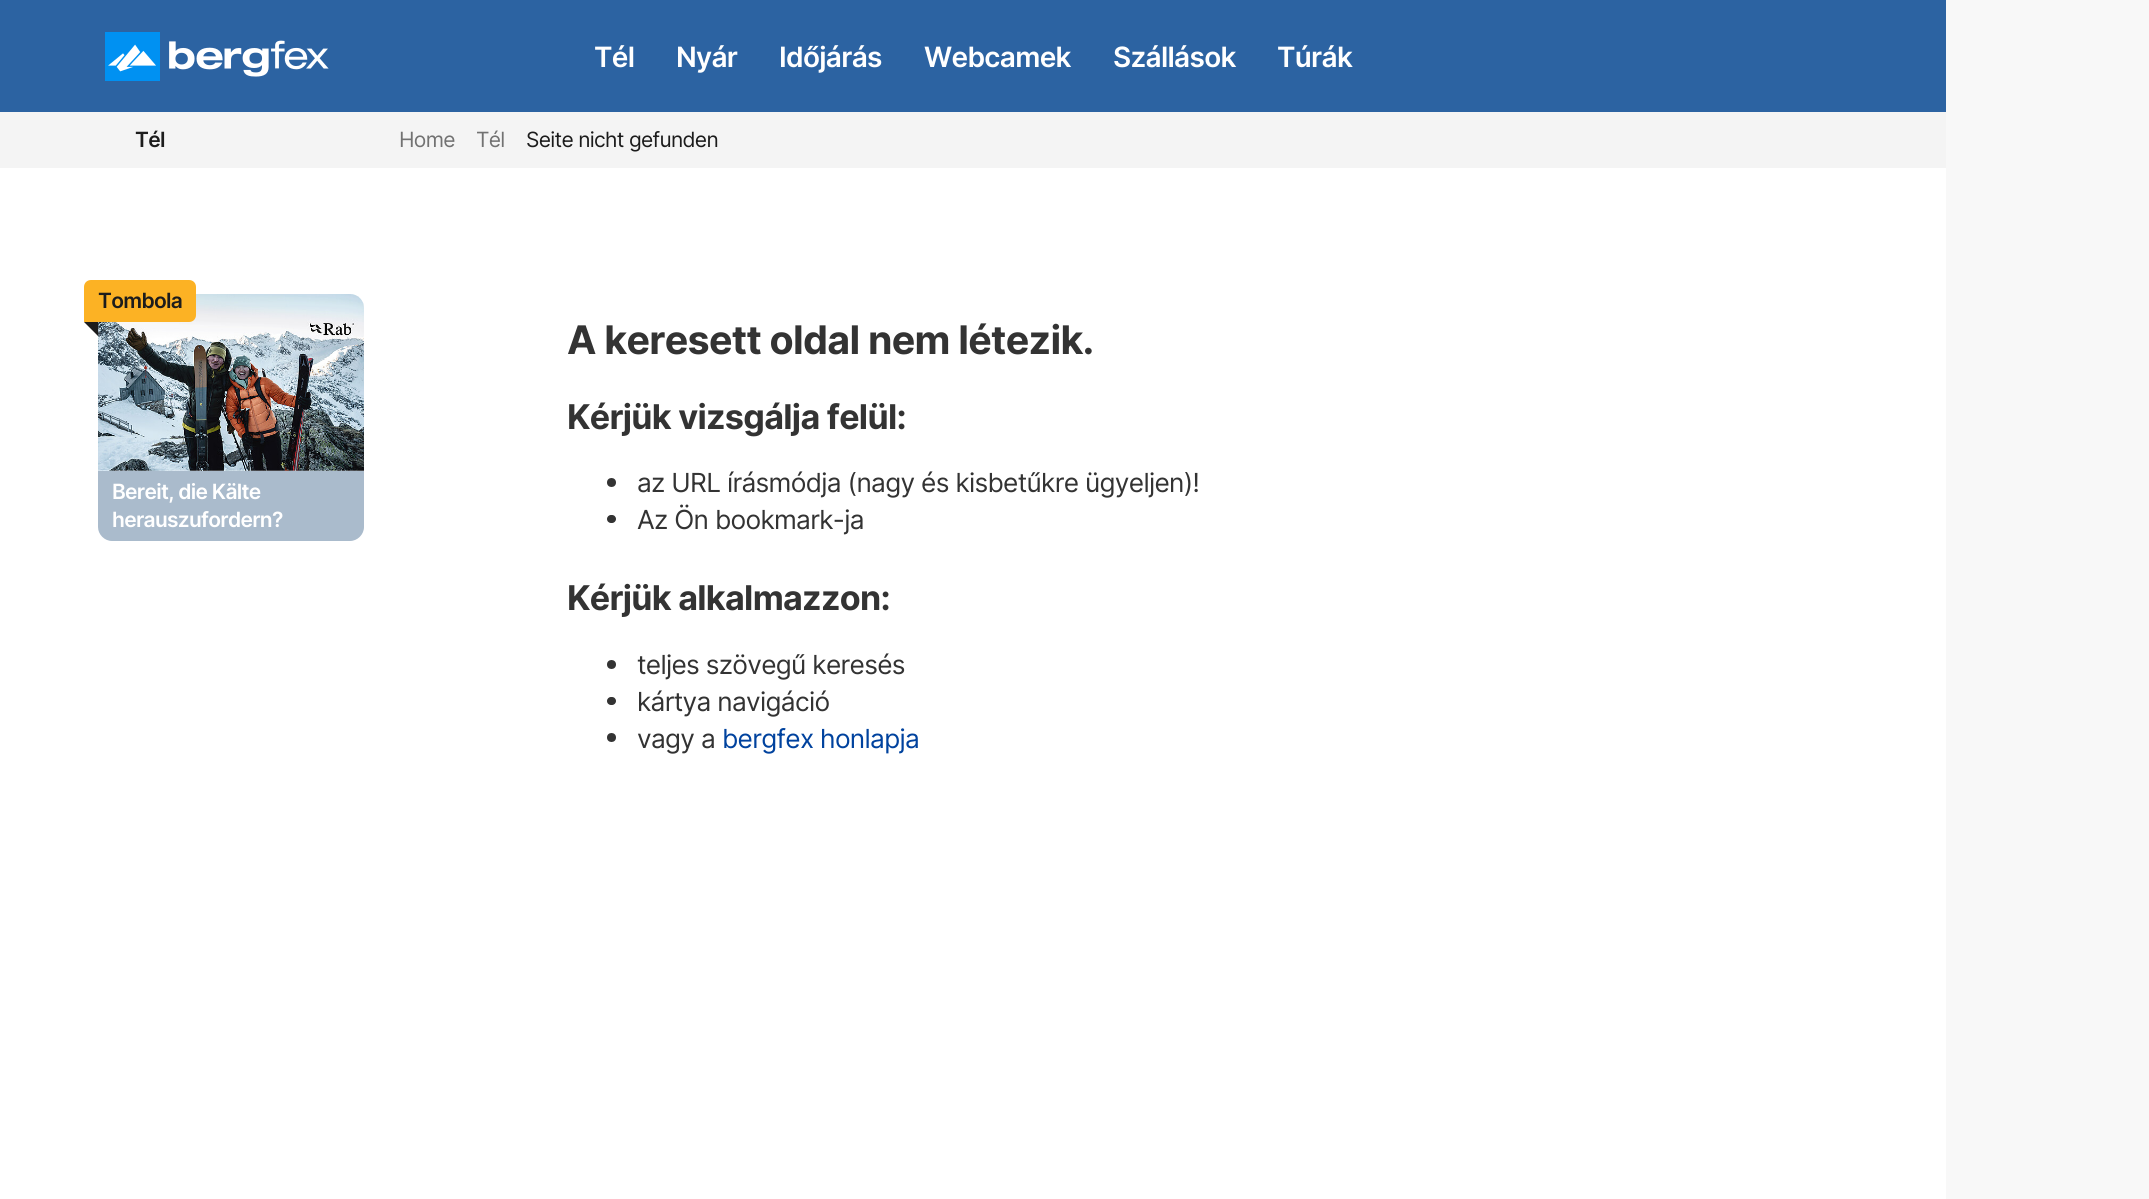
#include <cairo.h>
#include <math.h>
#include <stddef.h>


static void rgb(cairo_t *cr, int r, int g, int b)
{
	cairo_set_source_rgb(cr, r / 255.0, g / 255.0, b / 255.0);
}

static void face(cairo_t *cr, const char *family, double size, int italic, int bold)
{
	cairo_select_font_face(cr, family, italic ? CAIRO_FONT_SLANT_ITALIC : CAIRO_FONT_SLANT_NORMAL,
		bold ? CAIRO_FONT_WEIGHT_BOLD : CAIRO_FONT_WEIGHT_NORMAL);
	cairo_set_font_size(cr, size);
}

static void tracked(cairo_t *cr, double x, double y, const char *s, double letter, double word)
{
	cairo_move_to(cr, x, y);
	while (*s) {
		char ch[5] = {0};
		int n = 0;
		do ch[n++] = *s++; while ((*s & 0xC0) == 0x80);
		cairo_show_text(cr, ch);
		cairo_rel_move_to(cr, letter + word * (*ch == ' '), 0);
	}
}

static void rect(cairo_t *cr, double x, double y, double w, double h)
{
	cairo_rectangle(cr, x, y, w, h);
	cairo_fill(cr);
}

static void rrect(cairo_t *cr, double x, double y, double w, double h, double r)
{
	cairo_new_sub_path(cr);
	cairo_arc(cr, x + w - r, y + h - r, r, 0, M_PI / 2);
	cairo_arc(cr, x + r, y + h - r, r, M_PI / 2, M_PI);
	cairo_arc(cr, x + r, y + r, r, M_PI, 1.5 * M_PI);
	cairo_arc(cr, x + w - r, y + r, r, 1.5 * M_PI, 2 * M_PI);
	cairo_close_path(cr);
}

static void image(cairo_t *cr, const char *path, double x, double y, double w, double h)
{
	cairo_surface_t *image = cairo_image_surface_create_from_png(path);
	cairo_save(cr);
	cairo_set_source_surface(cr, image, x, y);
	cairo_rectangle(cr, x, y, w, h);
	cairo_fill(cr);
	cairo_restore(cr);
	cairo_surface_destroy(image);
}

static void draw(cairo_t *cr) {
	rgb(cr, 255, 255, 255);
	cairo_paint(cr);
	rgb(cr, 44, 99, 162);
	rect(cr, 0, 0, 1946, 112);
	image(cr, "image0.png", 105, 32, 224, 49);
	face(cr, "Inter SemiBold", 28, 0, 0);
	rgb(cr, 255, 255, 255);
	tracked(cr, 594, 67, "Tél", -0.7, 0);
	tracked(cr, 676, 67, "Nyár", -0.7, 0);
	tracked(cr, 779, 67, "Időjárás", -0.7, 0);
	tracked(cr, 924, 67, "Webcamek", -0.7, 0);
	tracked(cr, 1113, 67, "Szállások", -0.7, 0);
	tracked(cr, 1277, 67, "Túrák", -0.7, 0);
	rgb(cr, 244, 244, 244);
	rect(cr, 0, 112, 1946, 56);
	face(cr, "Inter SemiBold", 21, 0, 0);
	rgb(cr, 28, 28, 28);
	tracked(cr, 135, 147, "Tél", -0.7, 0);
	face(cr, "Inter", 21, 0, 0);
	rgb(cr, 114, 114, 114);
	tracked(cr, 399, 147, "Home", -0.7, 0);
	tracked(cr, 476, 147, "Tél", -0.7, 0);
	rgb(cr, 28, 28, 28);
	tracked(cr, 526, 147, "Seite nicht gefunden", -0.7, 0);
	rgb(cr, 248, 248, 248);
	rect(cr, 1946, 0, 203, 1199);
	image(cr, "image1.png", 98, 294, 266, 177);
	rgb(cr, 252, 178, 36);
	cairo_new_path(cr);
	cairo_move_to(cr, 91, 280);
	cairo_line_to(cr, 189, 280);
	cairo_curve_to(cr, 193, 280, 196, 283, 196, 287);
	cairo_line_to(cr, 196, 315);
	cairo_curve_to(cr, 196, 319, 193, 322, 189, 322);
	cairo_line_to(cr, 84, 322);
	cairo_line_to(cr, 84, 287);
	cairo_curve_to(cr, 84, 283, 87, 280, 91, 280);
	cairo_close_path(cr);
	cairo_fill(cr);
	face(cr, "Inter SemiBold", 21, 0, 0);
	rgb(cr, 28, 28, 28);
	tracked(cr, 98, 308, "Tombola", -0.7, 0);
	cairo_new_path(cr);
	cairo_move_to(cr, 98, 322);
	cairo_line_to(cr, 98, 336);
	cairo_line_to(cr, 84, 322);
	cairo_close_path(cr);
	cairo_fill(cr);
	rgb(cr, 170, 187, 204);
	cairo_new_path(cr);
	cairo_move_to(cr, 98, 471);
	cairo_line_to(cr, 364, 471);
	cairo_line_to(cr, 364, 527);
	cairo_curve_to(cr, 364, 534.5, 357.5, 541, 350, 541);
	cairo_line_to(cr, 112, 541);
	cairo_curve_to(cr, 104.5, 541, 98, 534.5, 98, 527);
	cairo_close_path(cr);
	cairo_fill(cr);
	rgb(cr, 255, 255, 255);
	tracked(cr, 112, 499, "Bereit, die Kälte", -0.7, 0);
	tracked(cr, 112, 527, "herauszufordern?", -0.7, 0);
	face(cr, "Inter", 39.4, 0, 1);
	rgb(cr, 51, 51, 51);
	tracked(cr, 567, 354, "A keresett oldal nem létezik.", -0.7, 0);
	face(cr, "Inter", 34.1, 0, 1);
	tracked(cr, 567, 429, "Kérjük vizsgálja felül:", -0.7, 0);
	cairo_new_path(cr);
	cairo_arc(cr, 611.5, 482.5, 4.5, 0, 2 * M_PI);
	cairo_fill(cr);
	face(cr, "Inter", 26.25, 0, 0);
	tracked(cr, 637, 492, "az URL írásmódja (nagy és kisbetűkre ügyeljen)!", -0.7, 0);
	rrect(cr, 607, 515, 9, 8, 4);
	cairo_fill(cr);
	tracked(cr, 637, 529, "Az Ön bookmark-ja", -0.7, 0);
	face(cr, "Inter", 34.1, 0, 1);
	tracked(cr, 567, 610, "Kérjük alkalmazzon:", -0.7, 0);
	cairo_new_path(cr);
	cairo_arc(cr, 611.5, 664.5, 4.5, 0, 2 * M_PI);
	cairo_fill(cr);
	face(cr, "Inter", 26.25, 0, 0);
	tracked(cr, 637, 674, "teljes szövegű keresés", -0.7, 0);
	rrect(cr, 607, 697, 9, 8, 4);
	cairo_fill(cr);
	tracked(cr, 637, 711, "kártya navigáció", -0.7, 0);
	cairo_new_path(cr);
	cairo_arc(cr, 611.5, 737.5, 4.5, 0, 2 * M_PI);
	cairo_fill(cr);
	tracked(cr, 637, 748, "vagy a", -0.7, 0);
	rgb(cr, 0, 66, 158);
	tracked(cr, 722, 748, "bergfex honlapja", -0.7, 0);
}

int main(void) {
	cairo_surface_t *surface = cairo_image_surface_create(CAIRO_FORMAT_RGB24, 2149, 1199);
	cairo_t *cr = cairo_create(surface);
	cairo_font_options_t *options = cairo_font_options_create();
	cairo_font_options_set_hint_metrics(options, CAIRO_HINT_METRICS_OFF);
	cairo_font_options_set_hint_style(options, CAIRO_HINT_STYLE_NONE);
	cairo_set_font_options(cr, options);
	cairo_set_miter_limit(cr, 4);
	draw(cr);
	cairo_surface_write_to_png(surface, "render.png");
	cairo_font_options_destroy(options);
	cairo_destroy(cr);
	cairo_surface_destroy(surface);
	return 0;
}
